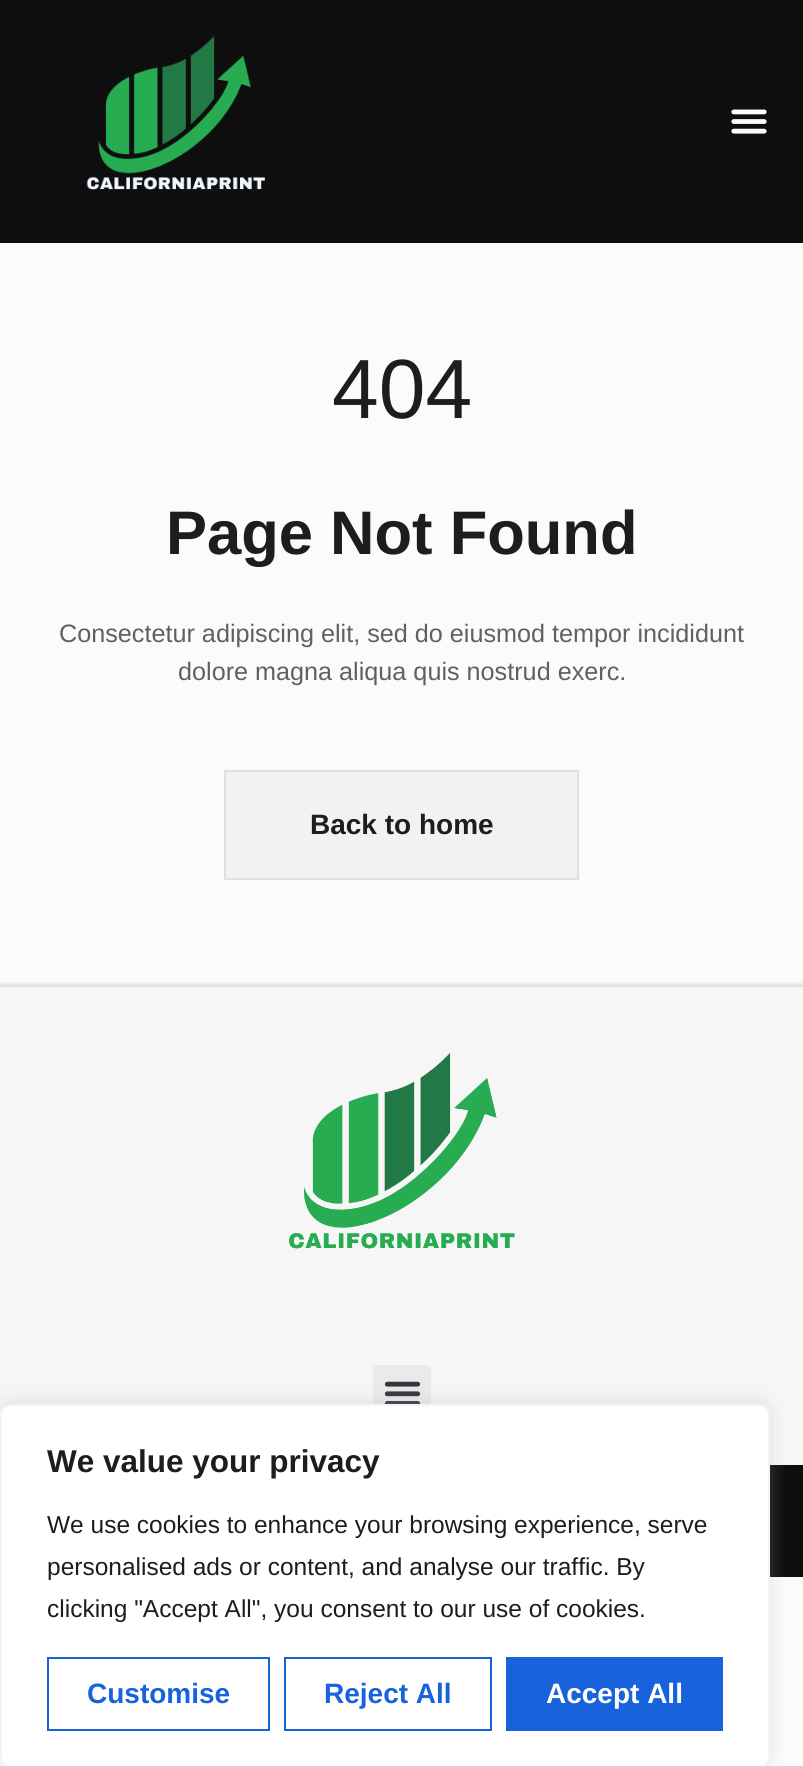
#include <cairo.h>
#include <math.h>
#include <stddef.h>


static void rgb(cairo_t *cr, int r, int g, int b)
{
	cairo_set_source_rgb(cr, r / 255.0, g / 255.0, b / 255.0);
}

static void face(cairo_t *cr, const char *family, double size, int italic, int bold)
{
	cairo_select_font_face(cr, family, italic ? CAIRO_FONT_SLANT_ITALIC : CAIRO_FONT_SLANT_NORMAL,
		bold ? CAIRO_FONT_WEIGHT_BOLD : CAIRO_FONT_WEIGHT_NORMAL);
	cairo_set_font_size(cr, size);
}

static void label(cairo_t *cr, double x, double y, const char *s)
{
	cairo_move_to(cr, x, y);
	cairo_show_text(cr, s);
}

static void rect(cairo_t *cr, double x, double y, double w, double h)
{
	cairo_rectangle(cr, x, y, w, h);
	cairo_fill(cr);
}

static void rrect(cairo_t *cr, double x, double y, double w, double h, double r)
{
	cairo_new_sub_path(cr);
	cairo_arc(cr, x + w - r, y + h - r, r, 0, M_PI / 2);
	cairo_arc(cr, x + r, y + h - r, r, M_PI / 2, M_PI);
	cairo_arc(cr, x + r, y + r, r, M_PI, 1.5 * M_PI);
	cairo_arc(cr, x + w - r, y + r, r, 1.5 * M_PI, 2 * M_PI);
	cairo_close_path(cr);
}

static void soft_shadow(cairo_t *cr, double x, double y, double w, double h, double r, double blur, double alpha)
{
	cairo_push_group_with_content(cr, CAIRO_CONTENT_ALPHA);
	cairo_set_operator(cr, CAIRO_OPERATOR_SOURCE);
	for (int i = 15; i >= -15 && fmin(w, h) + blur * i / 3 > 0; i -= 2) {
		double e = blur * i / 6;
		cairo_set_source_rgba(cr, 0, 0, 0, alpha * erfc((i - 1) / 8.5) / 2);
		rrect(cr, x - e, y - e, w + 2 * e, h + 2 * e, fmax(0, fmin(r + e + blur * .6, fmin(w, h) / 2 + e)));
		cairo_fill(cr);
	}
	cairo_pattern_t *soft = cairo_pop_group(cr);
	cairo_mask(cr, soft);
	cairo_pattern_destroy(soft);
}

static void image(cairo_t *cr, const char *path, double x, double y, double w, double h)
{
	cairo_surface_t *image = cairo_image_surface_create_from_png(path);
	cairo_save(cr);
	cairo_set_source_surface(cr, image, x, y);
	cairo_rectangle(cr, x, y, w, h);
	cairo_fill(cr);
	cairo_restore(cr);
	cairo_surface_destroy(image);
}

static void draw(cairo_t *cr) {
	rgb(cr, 251, 251, 251);
	cairo_paint(cr);
	rgb(cr, 14, 14, 14);
	rect(cr, 0, 0, 803, 243);
	image(cr, "image0.png", 86, 36, 179, 154);
	image(cr, "image1.png", 731, 109, 36, 25);
	face(cr, "Liberation Sans", 84, 0, 0);
	rgb(cr, 29, 29, 29);
	label(cr, 332, 418, "404");
	face(cr, "Liberation Sans", 61.5, 0, 1);
	label(cr, 166, 554, "Page Not Found");
	face(cr, "Liberation Sans", 25.2, 0, 0);
	rgb(cr, 96, 96, 96);
	label(cr, 59, 642, "Consectetur adipiscing elit, sed do eiusmod tempor incididunt");
	label(cr, 178, 680, "dolore magna aliqua quis nostrud exerc.");
	rgb(cr, 242, 242, 242);
	cairo_rectangle(cr, 225, 771, 353, 108);
	cairo_fill_preserve(cr);
	rgb(cr, 224, 224, 224);
	cairo_stroke(cr);
	face(cr, "Liberation Sans", 28, 0, 1);
	rgb(cr, 29, 29, 29);
	label(cr, 310, 834, "Back to home");
	rgb(cr, 0, 0, 0);
	soft_shadow(cr, 0, 985, 803, 480, 0, 2, 0.2);
	rgb(cr, 246, 246, 246);
	rect(cr, 0, 987, 803, 478);
	rgb(cr, 224, 224, 224);
	rect(cr, 0, 985, 803, 2);
	image(cr, "image2.png", 289, 1053, 226, 196);
	rgb(cr, 234, 234, 234);
	rrect(cr, 373, 1365, 58, 58, 5);
	cairo_fill(cr);
	image(cr, "image3.png", 384, 1381, 37, 23);
	rgb(cr, 14, 14, 14);
	rect(cr, 770, 1465, 33, 112);
	rgb(cr, 172, 171, 171);
	soft_shadow(cr, 0, 1402, 770, 364, 11, 9, 0.3);
	rgb(cr, 255, 255, 255);
	rrect(cr, 1, 1405, 768, 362, 10);
	cairo_fill_preserve(cr);
	rgb(cr, 244, 244, 244);
	cairo_stroke(cr);
	face(cr, "Liberation Sans", 31.5, 0, 1);
	rgb(cr, 29, 29, 29);
	label(cr, 47, 1472, "We value your privacy");
	face(cr, "Liberation Sans", 24.5, 0, 0);
	label(cr, 47, 1533, "We use cookies to enhance your browsing experience, serve");
	label(cr, 47, 1575, "personalised ads or content, and analyse our traffic. By");
	label(cr, 47, 1617, "clicking \"Accept All\", you consent to our use of cookies.");
	cairo_rectangle(cr, 48, 1658, 221, 72);
	rgb(cr, 24, 99, 220);
	cairo_stroke(cr);
	face(cr, "Liberation Sans", 28, 0, 1);
	label(cr, 87, 1703, "Customise");
	cairo_rectangle(cr, 285, 1658, 206, 72);
	cairo_stroke(cr);
	label(cr, 324, 1703, "Reject All");
	rect(cr, 506, 1657, 217, 74);
	rgb(cr, 255, 255, 255);
	label(cr, 546, 1703, "Accept All");
}

int main(void) {
	cairo_surface_t *surface = cairo_image_surface_create(CAIRO_FORMAT_RGB24, 803, 1766);
	cairo_t *cr = cairo_create(surface);
	cairo_font_options_t *options = cairo_font_options_create();
	cairo_font_options_set_hint_metrics(options, CAIRO_HINT_METRICS_OFF);
	cairo_font_options_set_hint_style(options, CAIRO_HINT_STYLE_NONE);
	cairo_set_font_options(cr, options);
	cairo_set_miter_limit(cr, 4);
	draw(cr);
	cairo_surface_write_to_png(surface, "render.png");
	cairo_font_options_destroy(options);
	cairo_destroy(cr);
	cairo_surface_destroy(surface);
	return 0;
}
